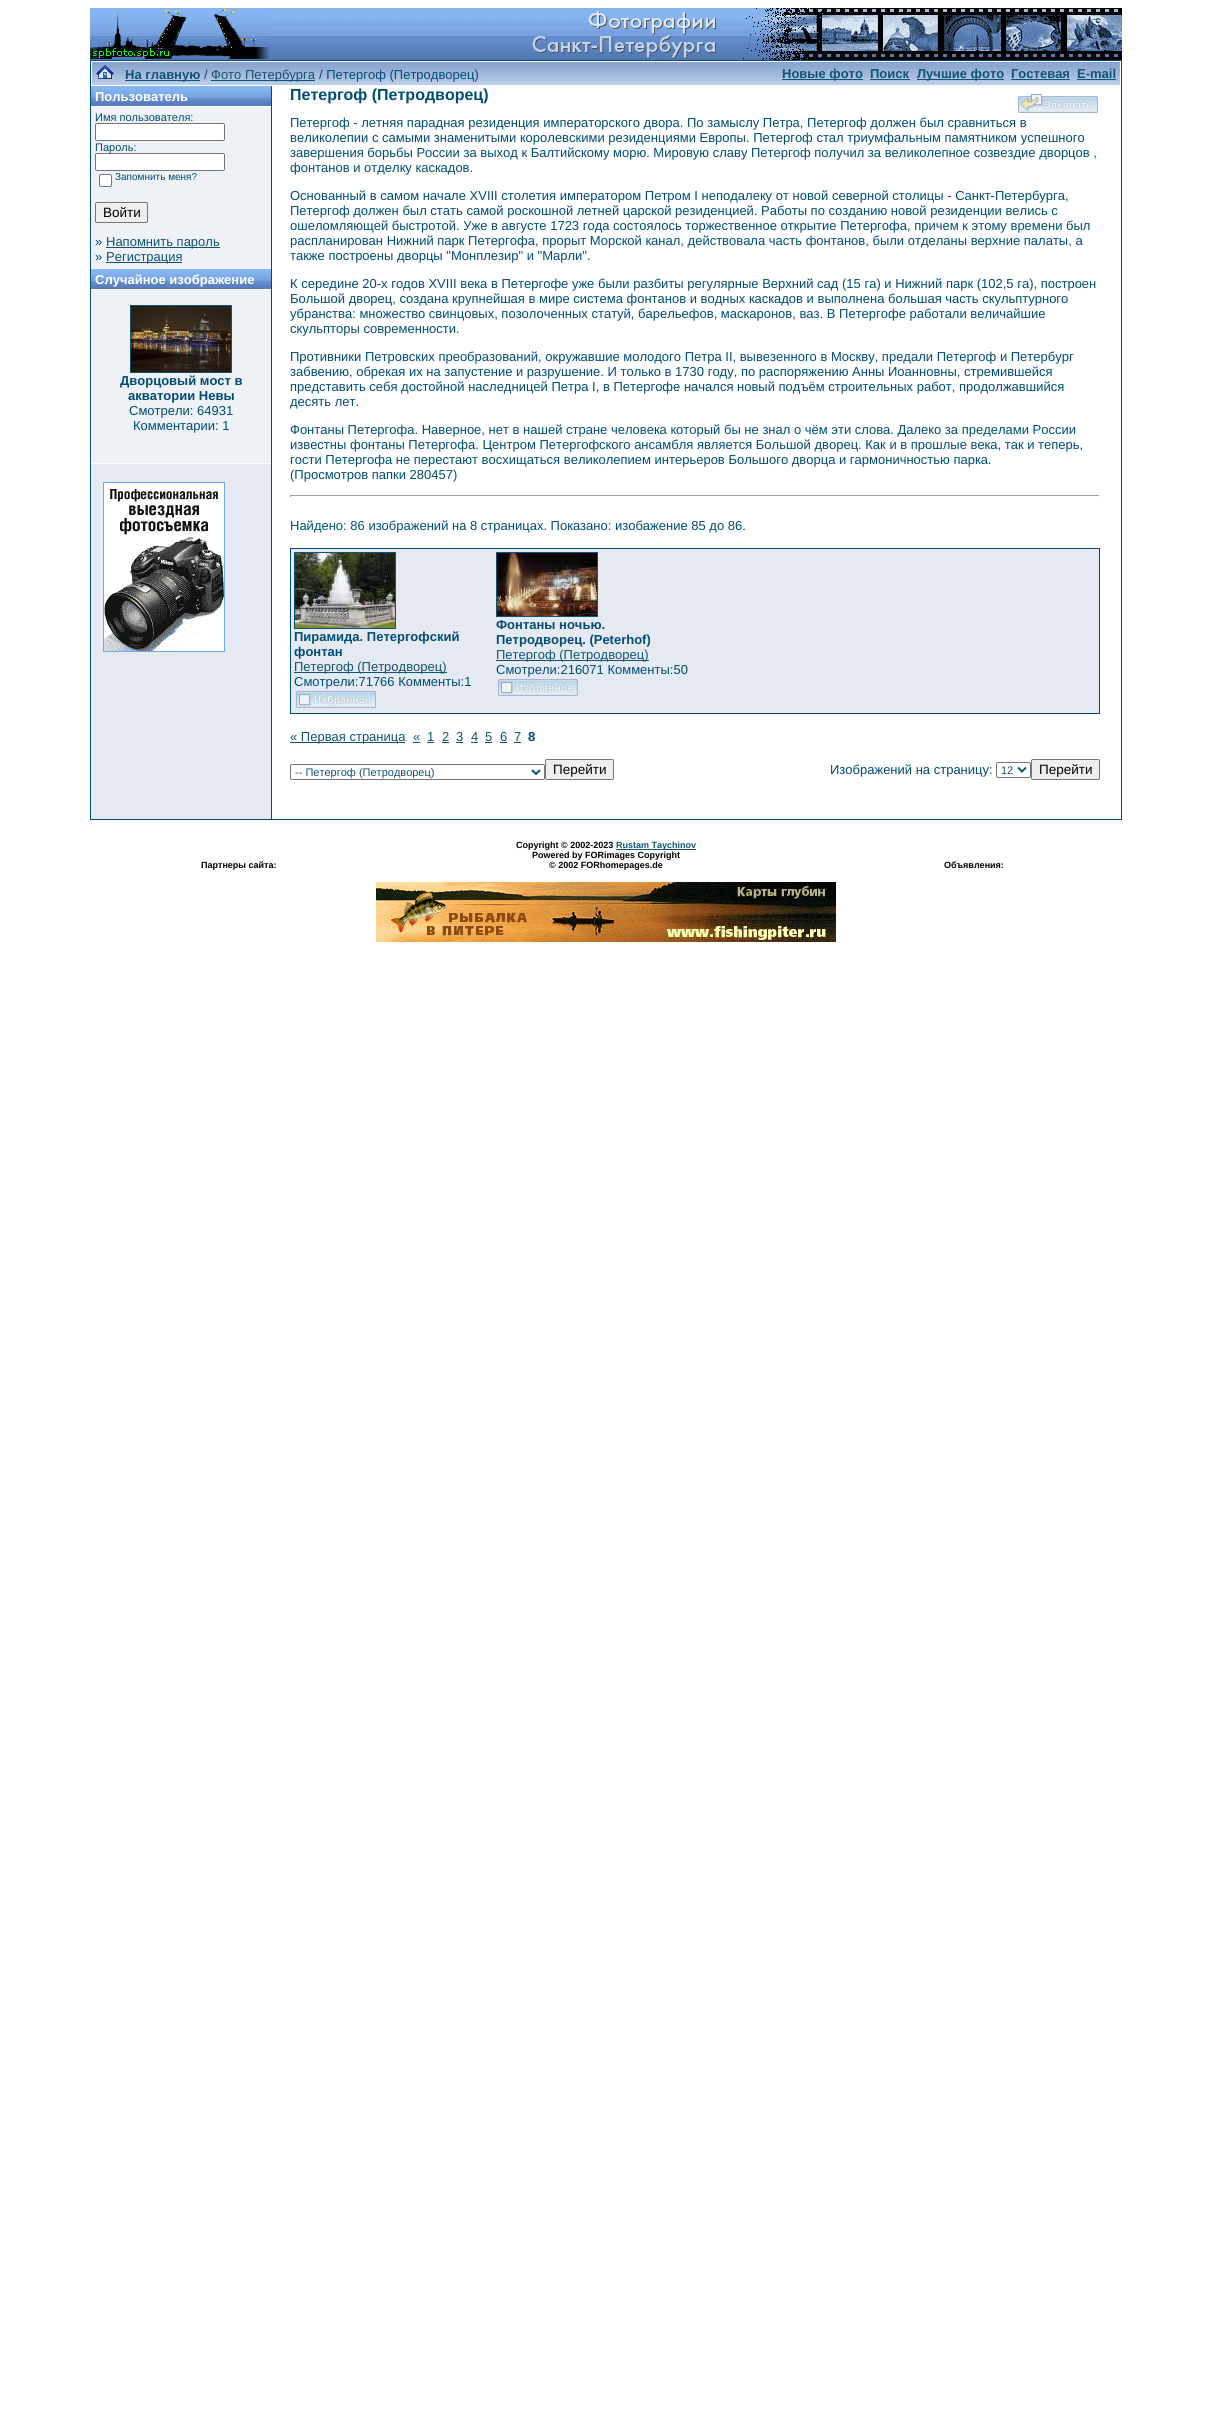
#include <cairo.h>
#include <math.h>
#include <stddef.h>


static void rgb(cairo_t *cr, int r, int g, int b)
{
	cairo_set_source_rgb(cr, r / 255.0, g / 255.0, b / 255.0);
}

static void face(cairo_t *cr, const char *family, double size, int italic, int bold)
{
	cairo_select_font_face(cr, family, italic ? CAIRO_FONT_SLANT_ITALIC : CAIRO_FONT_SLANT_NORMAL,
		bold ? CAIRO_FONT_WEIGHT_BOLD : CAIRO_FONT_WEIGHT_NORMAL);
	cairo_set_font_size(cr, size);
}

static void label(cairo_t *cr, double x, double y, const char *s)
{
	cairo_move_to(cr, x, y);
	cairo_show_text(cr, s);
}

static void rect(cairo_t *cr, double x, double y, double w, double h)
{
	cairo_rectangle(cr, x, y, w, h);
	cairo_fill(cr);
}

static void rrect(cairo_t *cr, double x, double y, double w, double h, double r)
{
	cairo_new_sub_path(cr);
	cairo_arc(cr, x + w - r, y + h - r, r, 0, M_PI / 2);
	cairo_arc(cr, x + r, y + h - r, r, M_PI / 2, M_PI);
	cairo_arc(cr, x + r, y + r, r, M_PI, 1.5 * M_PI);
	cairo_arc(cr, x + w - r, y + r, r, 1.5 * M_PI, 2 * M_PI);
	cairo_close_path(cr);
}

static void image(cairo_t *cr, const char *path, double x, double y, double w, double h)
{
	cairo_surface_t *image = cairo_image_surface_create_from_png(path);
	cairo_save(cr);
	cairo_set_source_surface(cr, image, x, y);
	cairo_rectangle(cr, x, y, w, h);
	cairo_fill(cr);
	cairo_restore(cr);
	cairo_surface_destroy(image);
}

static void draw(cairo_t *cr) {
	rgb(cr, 255, 255, 255);
	cairo_paint(cr);
	image(cr, "image0.png", 90, 8, 1032, 52);
	image(cr, "image1.png", 90, 9, 180, 50);
	rgb(cr, 0, 76, 117);
	rect(cr, 90, 60, 1032, 760);
	rgb(cr, 255, 255, 255);
	rect(cr, 91, 61, 1030, 758);
	image(cr, "image2.png", 92, 62, 1028, 23);
	image(cr, "image3.png", 96, 65, 18, 14);
	rgb(cr, 15, 84, 117);
	rect(cr, 125, 80, 75, 1);
	face(cr, "Liberation Sans", 13, 0, 1);
	label(cr, 125, 79, "На главную");
	face(cr, "Liberation Sans", 13, 0, 0);
	rgb(cr, 0, 76, 117);
	label(cr, 204, 79, "/");
	rgb(cr, 15, 84, 117);
	rect(cr, 211, 80, 104, 1);
	label(cr, 211, 79, "Фото Петербурга");
	rgb(cr, 0, 76, 117);
	label(cr, 319, 79, "/ Петергоф (Петродворец)");
	rgb(cr, 15, 84, 117);
	rect(cr, 782, 79, 81, 1);
	face(cr, "Liberation Sans", 13, 0, 1);
	label(cr, 782, 78, "Новые фото");
	label(cr, 870, 78, "Поиск");
	rect(cr, 870, 79, 40, 1);
	rect(cr, 917, 79, 87, 1);
	label(cr, 917, 78, "Лучшие фото");
	label(cr, 1011, 78, "Гостевая");
	rect(cr, 1011, 79, 59, 1);
	label(cr, 1077, 78, "E-mail");
	rect(cr, 1077, 79, 39, 1);
	rgb(cr, 229, 233, 242);
	rect(cr, 91, 464, 180, 355);
	image(cr, "image4.png", 91, 86, 180, 20);
	rgb(cr, 255, 255, 255);
	label(cr, 95, 101, "Пользователь");
	rgb(cr, 238, 241, 246);
	rect(cr, 91, 107, 180, 161);
	face(cr, "Liberation Sans", 11, 0, 0);
	rgb(cr, 0, 76, 117);
	label(cr, 95, 121, "Имя пользователя:");
	rgb(cr, 255, 255, 255);
	rrect(cr, 95.5, 123.5, 129, 17, 1.5);
	cairo_fill_preserve(cr);
	rgb(cr, 118, 118, 118);
	cairo_set_line_width(cr, 1);
	cairo_stroke(cr);
	rgb(cr, 0, 76, 117);
	label(cr, 95, 151, "Пароль:");
	rgb(cr, 255, 255, 255);
	rrect(cr, 95.5, 153.5, 129, 17, 1.5);
	cairo_fill_preserve(cr);
	rgb(cr, 118, 118, 118);
	cairo_stroke(cr);
	rgb(cr, 255, 255, 255);
	rrect(cr, 99.5, 174.5, 12, 12, 1.5);
	cairo_fill_preserve(cr);
	rgb(cr, 118, 118, 118);
	cairo_stroke(cr);
	face(cr, "Liberation Sans", 10, 0, 0);
	rgb(cr, 0, 76, 117);
	label(cr, 115, 180, "Запомнить меня?");
	rgb(cr, 239, 239, 239);
	rrect(cr, 95.5, 202.5, 52, 20, 1.5);
	cairo_fill_preserve(cr);
	rgb(cr, 118, 118, 118);
	cairo_stroke(cr);
	face(cr, "Liberation Sans", 13.5, 0, 0);
	rgb(cr, 0, 0, 0);
	label(cr, 103, 217, "Войти");
	face(cr, "Liberation Sans", 13, 0, 0);
	rgb(cr, 0, 76, 117);
	label(cr, 95, 246, "»");
	rgb(cr, 15, 84, 117);
	rect(cr, 106, 247, 114, 1);
	label(cr, 106, 246, "Напомнить пароль");
	rgb(cr, 0, 76, 117);
	label(cr, 95, 261, "»");
	rgb(cr, 15, 84, 117);
	rect(cr, 106, 262, 76, 1);
	label(cr, 106, 261, "Регистрация");
	image(cr, "image4.png", 91, 269, 180, 20);
	face(cr, "Liberation Sans", 13, 0, 1);
	rgb(cr, 255, 255, 255);
	label(cr, 95, 284, "Случайное изображение");
	rgb(cr, 238, 241, 246);
	rect(cr, 91, 290, 180, 173);
	cairo_rectangle(cr, 130.5, 305.5, 101, 67);
	rgb(cr, 15, 84, 117);
	cairo_stroke(cr);
	image(cr, "image5.png", 131, 306, 100, 66);
	rgb(cr, 0, 76, 117);
	label(cr, 120, 385, "Дворцовый мост в");
	label(cr, 128, 400, "акватории Невы");
	face(cr, "Liberation Sans", 13, 0, 0);
	label(cr, 129, 415, "Смотрели: 64931");
	label(cr, 133, 430, "Комментарии: 1");
	image(cr, "image6.png", 103, 482, 122, 170);
	rect(cr, 271, 86, 1, 733);
	face(cr, "Liberation Sans", 16, 0, 1);
	label(cr, 290, 100, "Петергоф (Петродворец)");
	image(cr, "image7.png", 1018, 94, 80, 19);
	face(cr, "Liberation Sans", 13, 0, 0);
	label(cr, 290, 127, "Петергоф - летняя парадная резиденция императорского двора. По замыслу Петра, Петергоф должен был сравниться в");
	label(cr, 290, 142, "великолепии с самыми знаменитыми королевскими резиденциями Европы. Петергоф стал триумфальным памятником успешного");
	label(cr, 290, 157, "завершения борьбы России за выход к Балтийскому морю. Мировую славу Петергоф получил за великолепное созвездие дворцов ,");
	label(cr, 290, 172, "фонтанов и отделку каскадов.");
	label(cr, 290, 200, "Основанный в самом начале XVIII столетия императором Петром I неподалеку от новой северной столицы - Санкт-Петербурга,");
	label(cr, 290, 215, "Петергоф должен был стать самой роскошной летней царской резиденцией. Работы по созданию новой резиденции велись с");
	label(cr, 290, 230, "ошеломляющей быстротой. Уже в августе 1723 года состоялось торжественное открытие Петергофа, причем к этому времени был");
	label(cr, 290, 245, "распланирован Нижний парк Петергофа, прорыт Морской канал, действовала часть фонтанов, были отделаны верхние палаты, а");
	label(cr, 290, 260, "также построены дворцы \"Монплезир\" и \"Марли\".");
	label(cr, 290, 288, "К середине 20-х годов XVIII века в Петергофе уже были разбиты регулярные Верхний сад (15 га) и Нижний парк (102,5 га), построен");
	label(cr, 290, 303, "Большой дворец, создана крупнейшая в мире система фонтанов и водных каскадов и выполнена большая часть скульптурного");
	label(cr, 290, 318, "убранства: множество свинцовых, позолоченных статуй, барельефов, маскаронов, ваз. В Петергофе работали величайшие");
	label(cr, 290, 333, "скульпторы современности.");
	label(cr, 290, 361, "Противники Петровских преобразований, окружавшие молодого Петра II, вывезенного в Москву, предали Петергоф и Петербург");
	label(cr, 290, 376, "забвению, обрекая их на запустение и разрушение. И только в 1730 году, по распоряжению Анны Иоанновны, стремившейся");
	label(cr, 290, 391, "представить себя достойной наследницей Петра I, в Петергофе начался новый подъём строительных работ, продолжавшийся");
	label(cr, 290, 406, "десять лет.");
	label(cr, 290, 434, "Фонтаны Петергофа. Наверное, нет в нашей стране человека который бы не знал о чём эти слова. Далеко за пределами России");
	label(cr, 290, 449, "известны фонтаны Петергофа. Центром Петергофского ансамбля является Большой дворец. Как и в прошлые века, так и теперь,");
	label(cr, 290, 464, "гости Петергофа не перестают восхищаться великолепием интерьеров Большого дворца и гармоничностью парка.");
	label(cr, 290, 479, "(Просмотров папки 280457)");
	rgb(cr, 159, 159, 159);
	rect(cr, 290, 495, 810, 1);
	rgb(cr, 238, 238, 238);
	rect(cr, 1099, 495, 1, 2);
	rgb(cr, 159, 159, 159);
	rect(cr, 290, 495, 1, 2);
	rgb(cr, 0, 76, 117);
	label(cr, 290, 530, "Найдено: 86 изображений на 8 страницах. Показано: изобажение 85 до 86.");
	rect(cr, 290, 548, 810, 166);
	rgb(cr, 229, 233, 242);
	rect(cr, 291, 549, 808, 164);
	cairo_rectangle(cr, 294.5, 552.5, 101, 76);
	rgb(cr, 15, 84, 117);
	cairo_stroke(cr);
	image(cr, "image8.png", 295, 553, 100, 75);
	face(cr, "Liberation Sans", 13, 0, 1);
	rgb(cr, 0, 76, 117);
	label(cr, 294, 641, "Пирамида. Петергофский");
	label(cr, 294, 656, "фонтан");
	rgb(cr, 15, 84, 117);
	rect(cr, 294, 672, 153, 1);
	face(cr, "Liberation Sans", 13, 0, 0);
	label(cr, 294, 671, "Петергоф (Петродворец)");
	rgb(cr, 0, 76, 117);
	label(cr, 294, 686, "Смотрели:71766 Комменты:1");
	image(cr, "image9.png", 296, 691, 80, 17);
	cairo_rectangle(cr, 496.5, 552.5, 101, 64);
	rgb(cr, 15, 84, 117);
	cairo_stroke(cr);
	image(cr, "image10.png", 497, 553, 100, 63);
	face(cr, "Liberation Sans", 13, 0, 1);
	rgb(cr, 0, 76, 117);
	label(cr, 496, 629, "Фонтаны ночью.");
	label(cr, 496, 644, "Петродворец. (Peterhof)");
	rgb(cr, 15, 84, 117);
	rect(cr, 496, 660, 153, 1);
	face(cr, "Liberation Sans", 13, 0, 0);
	label(cr, 496, 659, "Петергоф (Петродворец)");
	rgb(cr, 0, 76, 117);
	label(cr, 496, 674, "Смотрели:216071 Комменты:50");
	image(cr, "image9.png", 498, 679, 80, 17);
	rgb(cr, 15, 84, 117);
	rect(cr, 290, 742, 115, 1);
	label(cr, 290, 741, "« Первая страница");
	label(cr, 413, 741, "«");
	rect(cr, 413, 742, 7, 1);
	label(cr, 427, 741, "1");
	rect(cr, 427, 742, 7, 1);
	label(cr, 442, 741, "2");
	rect(cr, 442, 742, 7, 1);
	label(cr, 456, 741, "3");
	rect(cr, 456, 742, 7, 1);
	label(cr, 471, 741, "4");
	rect(cr, 471, 742, 7, 1);
	label(cr, 485, 741, "5");
	rect(cr, 485, 742, 7, 1);
	label(cr, 500, 741, "6");
	rect(cr, 500, 742, 7, 1);
	label(cr, 514, 741, "7");
	rect(cr, 514, 742, 7, 1);
	face(cr, "Liberation Sans", 13, 0, 1);
	rgb(cr, 0, 76, 117);
	label(cr, 528, 741, "8");
	rrect(cr, 290.5, 764.5, 254, 15, 1.5);
	rgb(cr, 118, 118, 118);
	cairo_stroke(cr);
	cairo_new_path(cr);
	cairo_move_to(cr, 532, 770);
	cairo_line_to(cr, 536, 774);
	cairo_line_to(cr, 540, 770);
	rgb(cr, 15, 84, 117);
	cairo_set_line_width(cr, 2);
	cairo_stroke(cr);
	face(cr, "Liberation Sans", 11, 0, 0);
	label(cr, 295, 776, "-- Петергоф (Петродворец)");
	rgb(cr, 239, 239, 239);
	rrect(cr, 545.5, 759.5, 68, 20, 1.5);
	cairo_fill_preserve(cr);
	rgb(cr, 118, 118, 118);
	cairo_set_line_width(cr, 1);
	cairo_stroke(cr);
	face(cr, "Liberation Sans", 13.5, 0, 0);
	rgb(cr, 0, 0, 0);
	label(cr, 553, 774, "Перейти");
	face(cr, "Liberation Sans", 13, 0, 0);
	rgb(cr, 0, 76, 117);
	label(cr, 830, 774, "Изображений на страницу:");
	rrect(cr, 996.5, 762.5, 34, 15, 1.5);
	rgb(cr, 118, 118, 118);
	cairo_stroke(cr);
	cairo_new_path(cr);
	cairo_move_to(cr, 1018, 767.5);
	cairo_line_to(cr, 1022, 771.5);
	cairo_line_to(cr, 1026, 767.5);
	rgb(cr, 15, 84, 117);
	cairo_set_line_width(cr, 2);
	cairo_stroke(cr);
	face(cr, "Liberation Sans", 11, 0, 0);
	label(cr, 1001, 774, "12");
	rgb(cr, 239, 239, 239);
	rrect(cr, 1031.5, 759.5, 68, 20, 1.5);
	cairo_fill_preserve(cr);
	rgb(cr, 118, 118, 118);
	cairo_set_line_width(cr, 1);
	cairo_stroke(cr);
	face(cr, "Liberation Sans", 13.5, 0, 0);
	rgb(cr, 0, 0, 0);
	label(cr, 1039, 774, "Перейти");
	face(cr, "Liberation Sans", 9, 0, 1);
	label(cr, 201, 868, "Партнеры сайта:");
	label(cr, 516, 848, "Copyright © 2002-2023");
	rgb(cr, 15, 84, 117);
	rect(cr, 616, 849, 80, 1);
	label(cr, 616, 848, "Rustam Taychinov");
	rgb(cr, 0, 0, 0);
	label(cr, 532, 858, "Powered by FORimages Copyright");
	label(cr, 549, 868, "© 2002 FORhomepages.de");
	label(cr, 944, 868, "Объявления:");
	image(cr, "image11.png", 376, 882, 460, 60);
}

int main(void) {
	cairo_surface_t *surface = cairo_image_surface_create(CAIRO_FORMAT_RGB24, 1212, 2421);
	cairo_t *cr = cairo_create(surface);
	cairo_font_options_t *options = cairo_font_options_create();
	cairo_font_options_set_hint_metrics(options, CAIRO_HINT_METRICS_OFF);
	cairo_font_options_set_hint_style(options, CAIRO_HINT_STYLE_NONE);
	cairo_set_font_options(cr, options);
	cairo_set_miter_limit(cr, 4);
	draw(cr);
	cairo_surface_write_to_png(surface, "render.png");
	cairo_font_options_destroy(options);
	cairo_destroy(cr);
	cairo_surface_destroy(surface);
	return 0;
}
